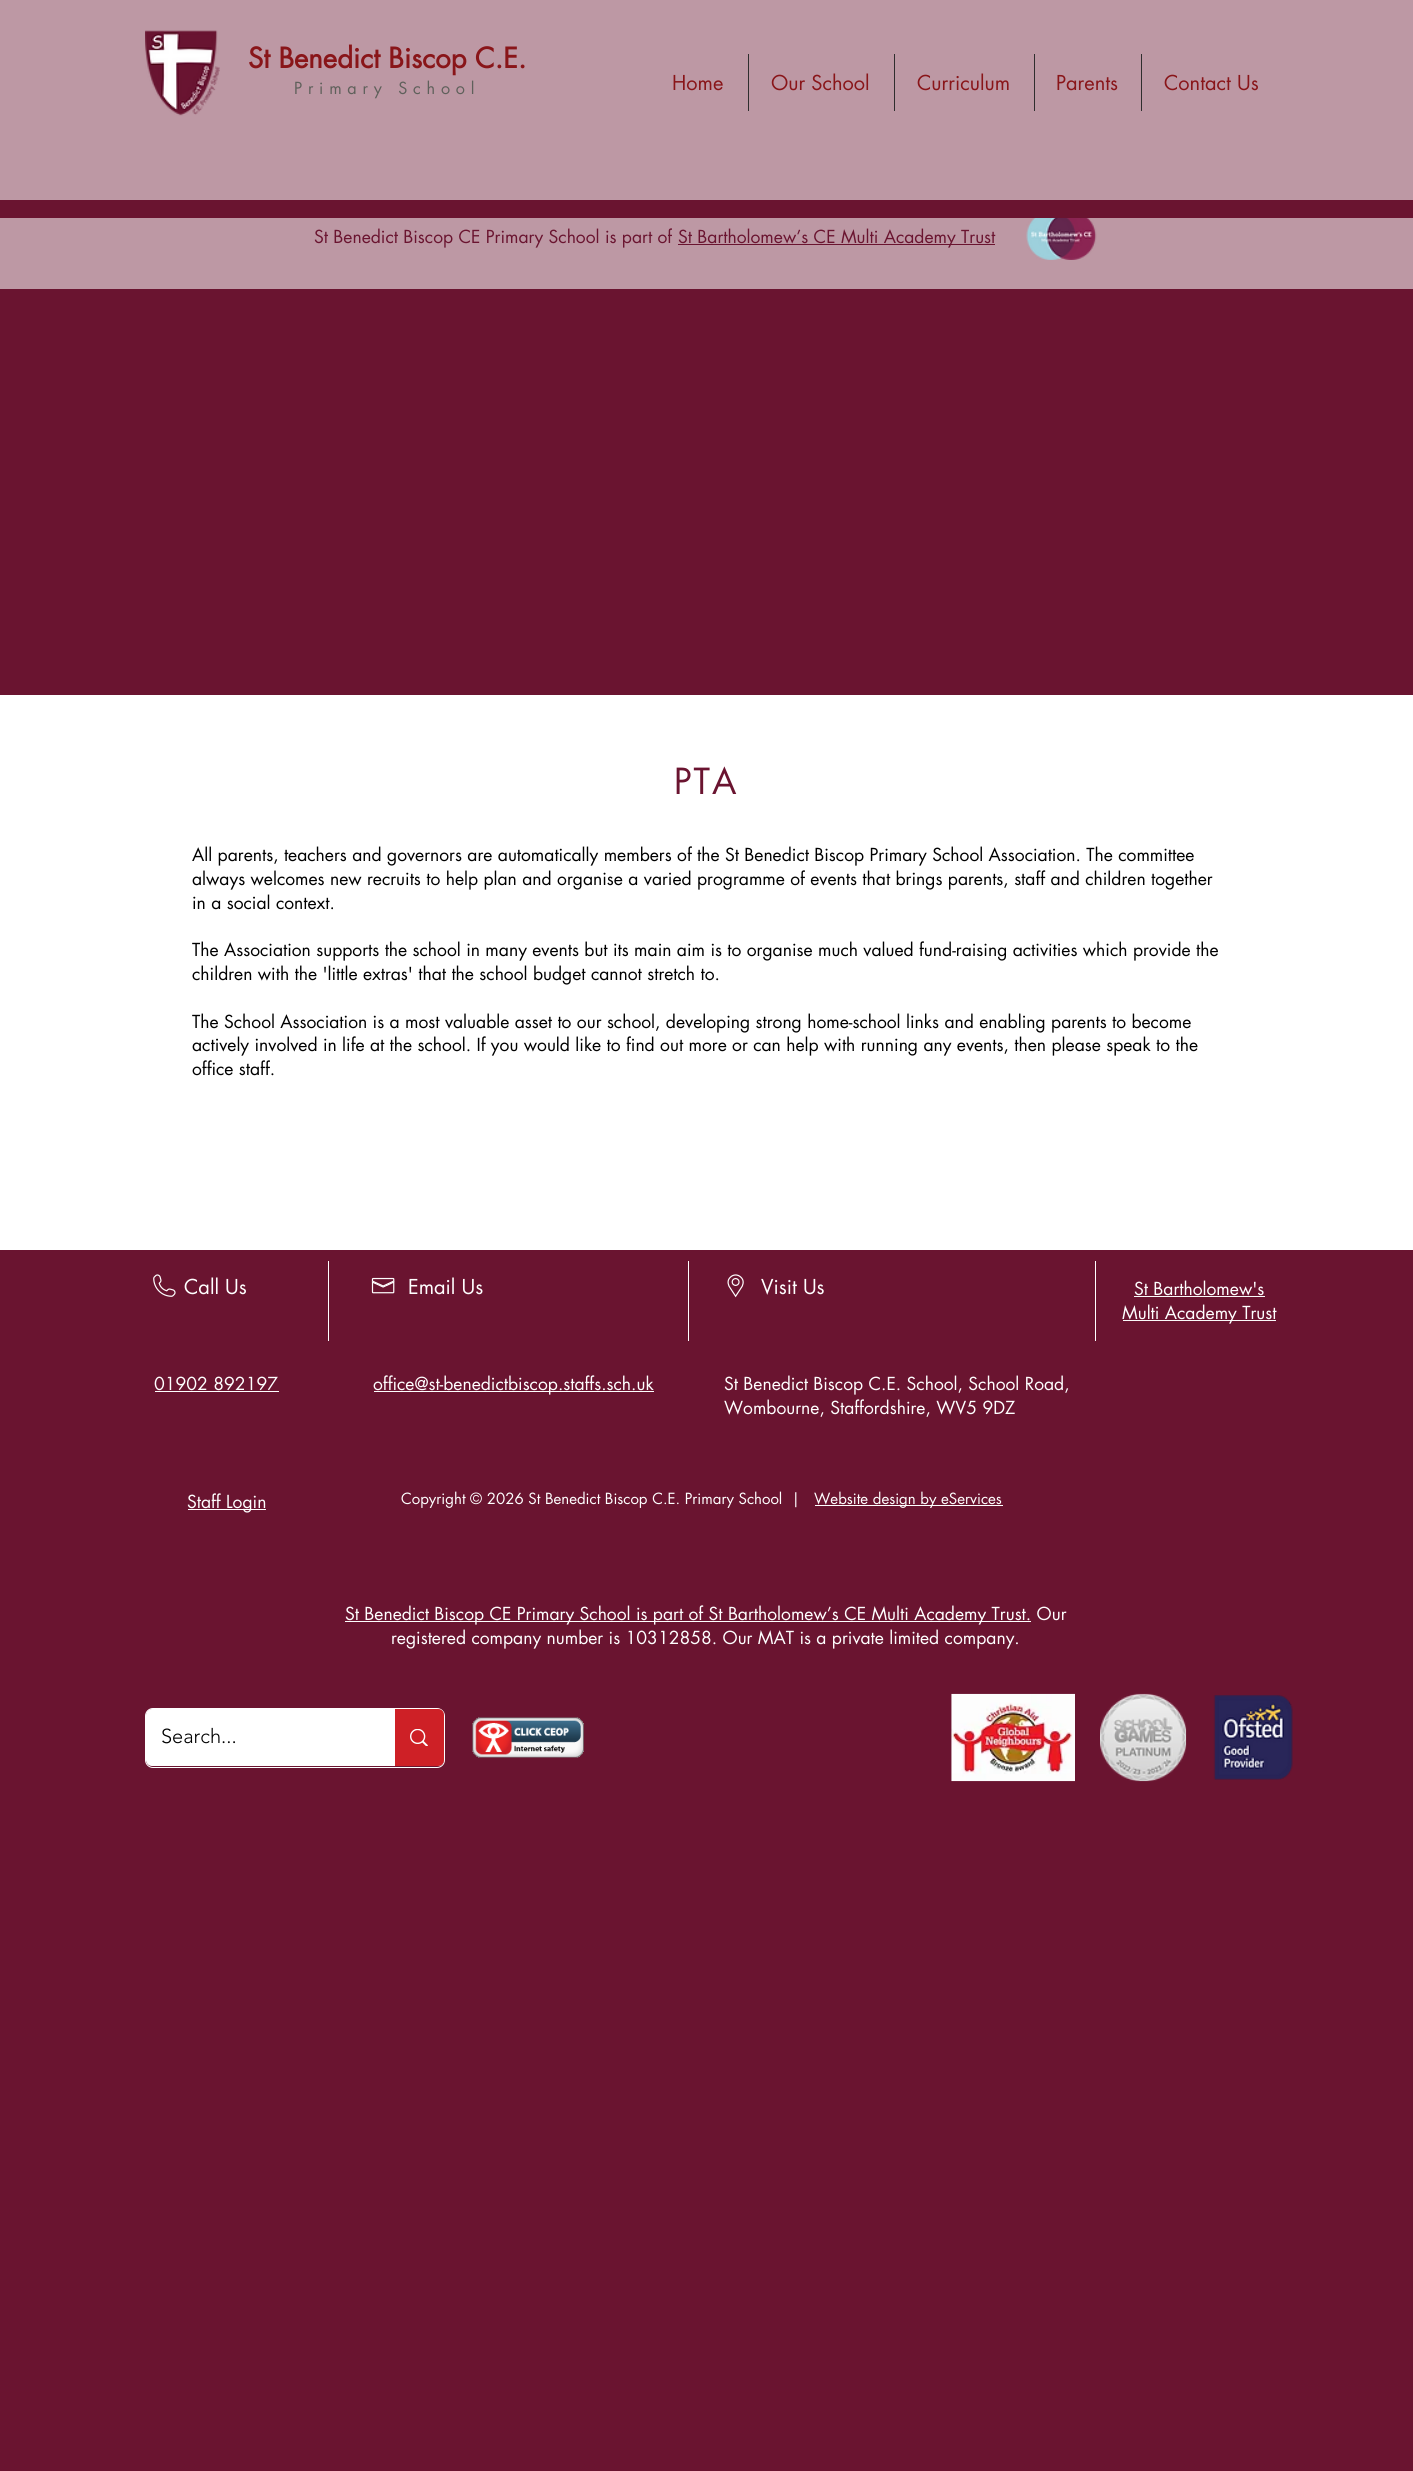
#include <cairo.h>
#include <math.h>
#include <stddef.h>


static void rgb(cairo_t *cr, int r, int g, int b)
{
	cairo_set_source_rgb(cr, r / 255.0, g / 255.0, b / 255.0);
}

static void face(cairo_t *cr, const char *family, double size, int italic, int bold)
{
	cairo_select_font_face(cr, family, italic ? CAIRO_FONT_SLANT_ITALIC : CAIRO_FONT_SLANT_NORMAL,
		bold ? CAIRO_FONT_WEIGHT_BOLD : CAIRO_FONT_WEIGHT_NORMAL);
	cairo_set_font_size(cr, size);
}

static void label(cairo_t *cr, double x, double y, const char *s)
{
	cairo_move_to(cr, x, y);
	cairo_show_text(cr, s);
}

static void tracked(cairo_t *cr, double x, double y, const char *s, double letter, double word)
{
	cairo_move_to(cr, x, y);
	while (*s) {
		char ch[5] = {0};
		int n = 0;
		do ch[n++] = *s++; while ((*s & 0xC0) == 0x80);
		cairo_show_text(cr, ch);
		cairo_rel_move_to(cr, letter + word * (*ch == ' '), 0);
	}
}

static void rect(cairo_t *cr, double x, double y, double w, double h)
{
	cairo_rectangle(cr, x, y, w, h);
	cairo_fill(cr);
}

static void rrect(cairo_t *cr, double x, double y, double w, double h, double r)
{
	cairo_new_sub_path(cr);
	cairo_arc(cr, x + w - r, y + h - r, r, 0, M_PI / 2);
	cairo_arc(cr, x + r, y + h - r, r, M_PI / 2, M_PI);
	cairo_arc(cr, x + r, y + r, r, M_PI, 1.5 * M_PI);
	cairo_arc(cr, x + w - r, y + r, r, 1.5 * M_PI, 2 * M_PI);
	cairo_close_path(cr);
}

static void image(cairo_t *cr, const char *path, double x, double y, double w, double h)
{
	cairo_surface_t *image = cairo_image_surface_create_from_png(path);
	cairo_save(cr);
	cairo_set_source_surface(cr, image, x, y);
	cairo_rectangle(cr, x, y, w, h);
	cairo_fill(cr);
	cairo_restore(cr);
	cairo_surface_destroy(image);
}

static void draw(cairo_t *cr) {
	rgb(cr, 106, 20, 48);
	cairo_paint(cr);
	rgb(cr, 189, 152, 164);
	rect(cr, 0, 0, 1413, 289);
	image(cr, "image0.png", 145, 30, 75, 86);
	face(cr, "futura", 27.5, 0, 1);
	rgb(cr, 137, 21, 25);
	label(cr, 248, 68, "St Benedict Biscop C.E.");
	face(cr, "futura", 16.25, 0, 0);
	rgb(cr, 95, 96, 91);
	tracked(cr, 294, 94, "Primary School", 5.75, 0);
	face(cr, "futura", 20, 0, 0);
	rgb(cr, 137, 21, 25);
	label(cr, 672, 90, "Home");
	rgb(cr, 47, 46, 46);
	rect(cr, 748, 54, 1, 57);
	rgb(cr, 137, 21, 25);
	label(cr, 771, 90, "Our School");
	rgb(cr, 47, 46, 46);
	rect(cr, 894, 54, 1, 57);
	rgb(cr, 137, 21, 25);
	label(cr, 917, 90, "Curriculum");
	rgb(cr, 47, 46, 46);
	rect(cr, 1034, 54, 1, 57);
	rgb(cr, 137, 21, 25);
	label(cr, 1056, 90, "Parents");
	rgb(cr, 47, 46, 46);
	rect(cr, 1141, 54, 1, 57);
	rgb(cr, 137, 21, 25);
	label(cr, 1164, 90, "Contact Us");
	face(cr, "futura", 17.5, 0, 0);
	rgb(cr, 106, 20, 48);
	label(cr, 314, 243, "St Benedict Biscop CE Primary School is part of");
	rect(cr, 678, 244, 317, 1);
	label(cr, 678, 243, "St Bartholomew’s CE Multi Academy Trust");
	image(cr, "image1.png", 1026, 218, 71, 42);
	rect(cr, 0, 200, 1413, 18);
	rgb(cr, 255, 255, 255);
	rect(cr, 0, 695, 1413, 555);
	face(cr, "futura", 35, 0, 0);
	rgb(cr, 106, 20, 48);
	tracked(cr, 674, 794, "PTA", 2, 0);
	face(cr, "futura", 17.5, 0, 0);
	rgb(cr, 0, 0, 0);
	label(cr, 192, 861, "All parents, teachers and governors are automatically members of the St Benedict Biscop Primary School Association. The committee");
	label(cr, 192, 885, "always welcomes new recruits to help plan and organise a varied programme of events that brings parents, staff and children together");
	label(cr, 192, 909, "in a social context.");
	label(cr, 192, 956, "The Association supports the school in many events but its main aim is to organise much valued fund-raising activities which provide the");
	label(cr, 192, 980, "children with the 'little extras' that the school budget cannot stretch to.");
	label(cr, 192, 1028, "The School Association is a most valuable asset to our school, developing strong home-school links and enabling parents to become");
	label(cr, 192, 1051, "actively involved in life at the school. If you would like to find out more or can help with running any events, then please speak to the");
	label(cr, 192, 1075, "office staff.");
	image(cr, "image2.png", 153, 1274, 23, 23);
	face(cr, "futura", 20, 0, 0);
	rgb(cr, 255, 255, 255);
	label(cr, 184, 1294, "Call Us");
	face(cr, "futura", 17.5, 0, 0);
	label(cr, 154, 1390, "01902 892197");
	rect(cr, 155, 1391, 124, 1);
	rect(cr, 328, 1261, 1, 80);
	image(cr, "image3.png", 371, 1277, 24, 17);
	face(cr, "futura", 20, 0, 0);
	label(cr, 408, 1294, "Email Us");
	rect(cr, 374, 1391, 280, 1);
	face(cr, "futura", 17.5, 0, 0);
	label(cr, 373, 1390, "office@st-benedictbiscop.staffs.sch.uk");
	rect(cr, 688, 1261, 1, 80);
	image(cr, "image4.png", 727, 1274, 17, 24);
	face(cr, "futura", 20, 0, 0);
	label(cr, 761, 1294, "Visit Us");
	face(cr, "futura", 17.5, 0, 0);
	label(cr, 724, 1390, "St Benedict Biscop C.E. School, School Road,");
	label(cr, 724, 1414, "Wombourne, Staffordshire, WV5 9DZ");
	rect(cr, 1095, 1261, 1, 80);
	label(cr, 1134, 1295, "St Bartholomew's");
	rgb(cr, 250, 250, 250);
	rect(cr, 1134, 1296, 131, 1);
	rect(cr, 1123, 1320, 153, 1);
	rgb(cr, 255, 255, 255);
	label(cr, 1122, 1319, "Multi Academy Trust");
	rect(cr, 188, 1509, 78, 1);
	label(cr, 187, 1508, "Staff Login");
	face(cr, "futura", 15, 0, 0);
	label(cr, 401, 1504, "Copyright © 2026 St Benedict Biscop C.E. Primary School  |");
	rect(cr, 815, 1505, 188, 1);
	label(cr, 814, 1504, "Website design by eServices");
	rect(cr, 345, 1621, 686, 1);
	face(cr, "futura", 17.5, 0, 0);
	label(cr, 345, 1620, "St Benedict Biscop CE Primary School is part of St Bartholomew’s CE Multi Academy Trust. Our");
	label(cr, 391, 1644, "registered company number is 10312858. Our MAT is a private limited company.");
	rrect(cr, 145.5, 1708.5, 299, 59, 7.5);
	cairo_set_line_width(cr, 1);
	cairo_stroke(cr);
	rrect(cr, 146, 1709, 298, 57, 6);
	cairo_fill(cr);
	face(cr, "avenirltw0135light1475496 Light", 20, 0, 0);
	rgb(cr, 0, 0, 0);
	label(cr, 161, 1743, "Search...");
	rgb(cr, 206, 32, 38);
	cairo_new_path(cr);
	cairo_move_to(cr, 394, 1709);
	cairo_line_to(cr, 438, 1709);
	cairo_curve_to(cr, 441.5, 1709, 444, 1711.5, 444, 1715);
	cairo_line_to(cr, 444, 1760);
	cairo_curve_to(cr, 444, 1763.5, 441.5, 1766, 438, 1766);
	cairo_line_to(cr, 394, 1766);
	cairo_close_path(cr);
	cairo_fill(cr);
	rgb(cr, 255, 255, 255);
	rect(cr, 394, 1709, 1, 57);
	image(cr, "image5.png", 410, 1729, 18, 17);
	image(cr, "image6.png", 472, 1717, 112, 41);
	image(cr, "image7.png", 951, 1693, 124, 89);
	image(cr, "image8.png", 1100, 1693, 87, 89);
	image(cr, "image9.png", 1213, 1695, 80, 85);
}

int main(void) {
	cairo_surface_t *surface = cairo_image_surface_create(CAIRO_FORMAT_RGB24, 1413, 2471);
	cairo_t *cr = cairo_create(surface);
	cairo_font_options_t *options = cairo_font_options_create();
	cairo_font_options_set_hint_metrics(options, CAIRO_HINT_METRICS_OFF);
	cairo_font_options_set_hint_style(options, CAIRO_HINT_STYLE_NONE);
	cairo_set_font_options(cr, options);
	cairo_set_miter_limit(cr, 4);
	draw(cr);
	cairo_surface_write_to_png(surface, "render.png");
	cairo_font_options_destroy(options);
	cairo_destroy(cr);
	cairo_surface_destroy(surface);
	return 0;
}
